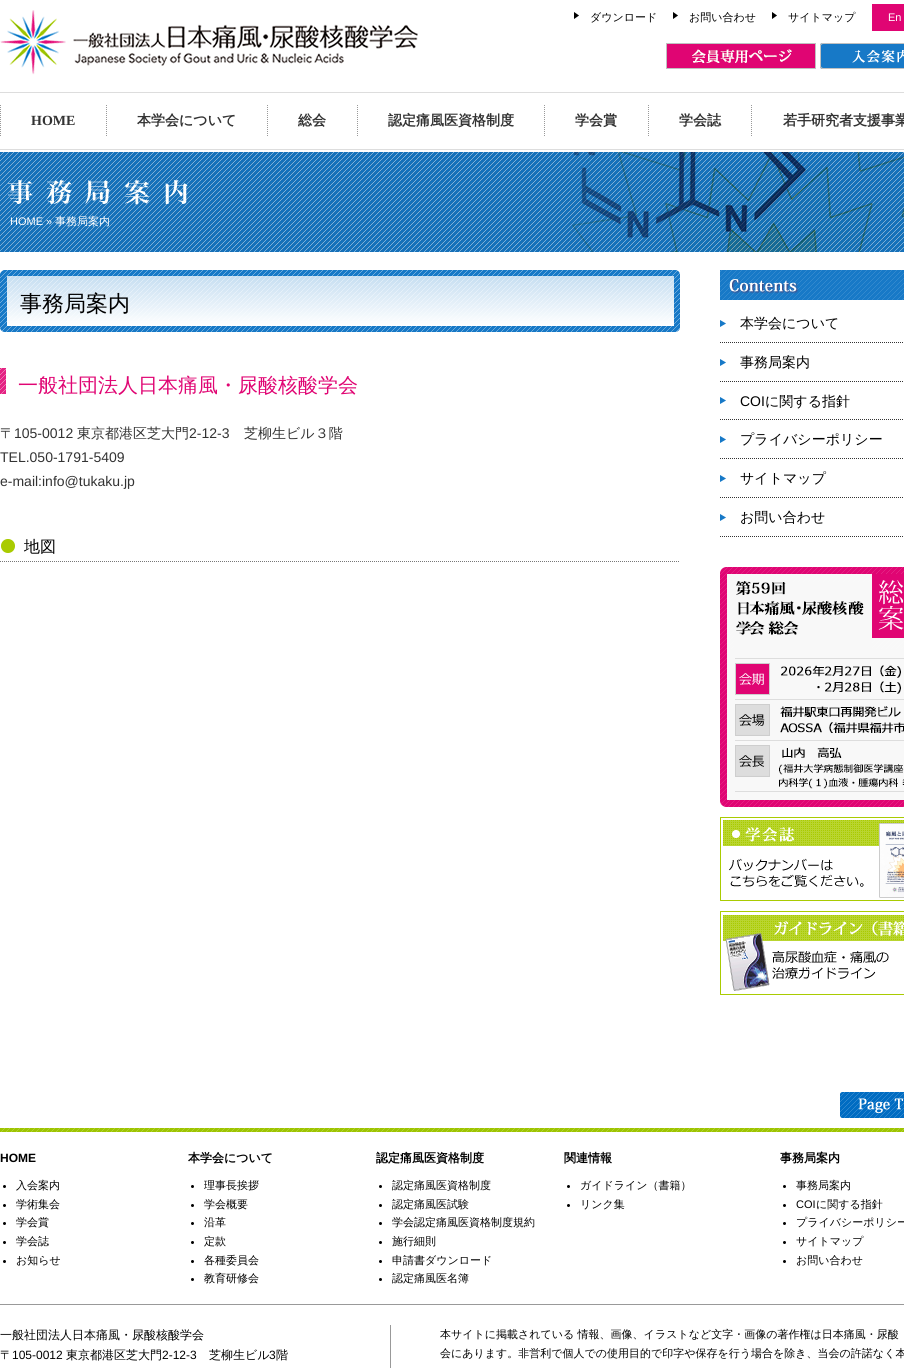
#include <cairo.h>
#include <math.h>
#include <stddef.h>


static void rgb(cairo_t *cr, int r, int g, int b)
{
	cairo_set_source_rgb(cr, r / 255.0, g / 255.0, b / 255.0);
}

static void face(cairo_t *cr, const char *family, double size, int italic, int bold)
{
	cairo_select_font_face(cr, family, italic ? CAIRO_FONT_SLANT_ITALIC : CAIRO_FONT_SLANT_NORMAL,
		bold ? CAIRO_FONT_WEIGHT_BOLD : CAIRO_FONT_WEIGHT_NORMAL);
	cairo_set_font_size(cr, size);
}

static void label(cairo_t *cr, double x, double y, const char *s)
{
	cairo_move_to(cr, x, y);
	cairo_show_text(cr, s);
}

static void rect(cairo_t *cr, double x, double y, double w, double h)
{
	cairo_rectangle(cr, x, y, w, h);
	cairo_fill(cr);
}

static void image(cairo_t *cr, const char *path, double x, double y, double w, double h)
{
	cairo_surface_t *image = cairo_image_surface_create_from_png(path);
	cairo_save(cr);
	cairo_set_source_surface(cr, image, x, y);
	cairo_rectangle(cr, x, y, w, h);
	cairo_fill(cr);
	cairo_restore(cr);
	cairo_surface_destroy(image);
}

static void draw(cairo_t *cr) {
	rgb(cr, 255, 255, 255);
	cairo_paint(cr);
	image(cr, "image0.png", 0, 10, 418, 65);
	image(cr, "image1.png", 574, 12, 5, 7);
	face(cr, "WenQuanYi Zen Hei Medium", 11, 0, 0);
	rgb(cr, 0, 0, 0);
	label(cr, 590, 21, "ダウンロード");
	image(cr, "image1.png", 673, 12, 5, 7);
	label(cr, 689, 21, "お問い合わせ");
	image(cr, "image1.png", 772, 12, 5, 7);
	label(cr, 788, 21, "サイトマップ");
	rgb(cr, 224, 5, 115);
	rect(cr, 872, 4, 32, 27);
	face(cr, "Liberation Sans", 11, 0, 0);
	rgb(cr, 255, 255, 255);
	label(cr, 888, 21, "En");
	image(cr, "image2.png", 666, 43, 150, 26);
	image(cr, "image3.png", 820, 43, 84, 26);
	rgb(cr, 221, 221, 221);
	rect(cr, 0, 92, 904, 1);
	rect(cr, 0, 149, 904, 1);
	cairo_new_path(cr);
	cairo_move_to(cr, 0.5, 105);
	cairo_line_to(cr, 0.5, 137);
	rgb(cr, 153, 153, 153);
	cairo_set_line_width(cr, 1);
	cairo_set_dash(cr, (double[]){1, 1}, 2, 0);
	cairo_stroke(cr);
	face(cr, "Liberation Serif", 14, 0, 1);
	rgb(cr, 51, 51, 51);
	label(cr, 31, 125, "HOME");
	cairo_new_path(cr);
	cairo_move_to(cr, 106.5, 105);
	cairo_line_to(cr, 106.5, 137);
	rgb(cr, 153, 153, 153);
	cairo_stroke(cr);
	face(cr, "WenQuanYi Zen Hei", 14, 0, 1);
	rgb(cr, 51, 51, 51);
	label(cr, 137, 125, "本学会について");
	cairo_new_path(cr);
	cairo_move_to(cr, 267.5, 105);
	cairo_line_to(cr, 267.5, 137);
	rgb(cr, 153, 153, 153);
	cairo_stroke(cr);
	rgb(cr, 51, 51, 51);
	label(cr, 298, 125, "総会");
	cairo_new_path(cr);
	cairo_move_to(cr, 357.5, 105);
	cairo_line_to(cr, 357.5, 137);
	rgb(cr, 153, 153, 153);
	cairo_stroke(cr);
	rgb(cr, 51, 51, 51);
	label(cr, 388, 125, "認定痛風医資格制度");
	cairo_new_path(cr);
	cairo_move_to(cr, 544.5, 105);
	cairo_line_to(cr, 544.5, 137);
	rgb(cr, 153, 153, 153);
	cairo_stroke(cr);
	rgb(cr, 51, 51, 51);
	label(cr, 575, 125, "学会賞");
	cairo_new_path(cr);
	cairo_move_to(cr, 648.5, 105);
	cairo_line_to(cr, 648.5, 137);
	rgb(cr, 153, 153, 153);
	cairo_stroke(cr);
	rgb(cr, 51, 51, 51);
	label(cr, 679, 125, "学会誌");
	cairo_new_path(cr);
	cairo_move_to(cr, 751.5, 105);
	cairo_line_to(cr, 751.5, 137);
	rgb(cr, 153, 153, 153);
	cairo_stroke(cr);
	rgb(cr, 51, 51, 51);
	label(cr, 783, 125, "若手研究者支援事業");
	image(cr, "image4.png", 0, 152, 904, 100);
	face(cr, "Liberation Sans", 11, 0, 0);
	rgb(cr, 255, 255, 255);
	label(cr, 10, 225, "HOME »");
	face(cr, "WenQuanYi Zen Hei Medium", 11, 0, 0);
	label(cr, 55, 225, "事務局案内");
	image(cr, "image5.png", 0, 270, 680, 62);
	face(cr, "WenQuanYi Zen Hei Medium", 22, 0, 0);
	rgb(cr, 0, 0, 0);
	label(cr, 20, 311, "事務局案内");
	image(cr, "image6.png", 0, 368, 6, 26);
	face(cr, "WenQuanYi Zen Hei Medium", 20, 0, 0);
	rgb(cr, 224, 5, 115);
	label(cr, 18, 392, "一般社団法人日本痛風・尿酸核酸学会");
	face(cr, "WenQuanYi Zen Hei Medium", 14, 0, 0);
	rgb(cr, 51, 51, 51);
	label(cr, 0, 438, "〒");
	face(cr, "Liberation Sans", 14, 0, 0);
	label(cr, 14, 438, "105-0012");
	face(cr, "WenQuanYi Zen Hei Medium", 14, 0, 0);
	label(cr, 77, 438, "東京都港区芝大門");
	face(cr, "Liberation Sans", 14, 0, 0);
	label(cr, 189, 438, "2-12-3");
	face(cr, "WenQuanYi Zen Hei Medium", 14, 0, 0);
	label(cr, 244, 438, "芝柳生ビル３階");
	face(cr, "Liberation Sans", 14, 0, 0);
	label(cr, 0, 462, "TEL.050-1791-5409");
	label(cr, 0, 486, "e-mail:info@tukaku.jp");
	image(cr, "image7.png", 1, 539, 14, 14);
	cairo_new_path(cr);
	cairo_move_to(cr, 0, 561.5);
	cairo_line_to(cr, 680, 561.5);
	rgb(cr, 119, 119, 119);
	cairo_stroke(cr);
	face(cr, "WenQuanYi Zen Hei Medium", 16, 0, 0);
	rgb(cr, 0, 0, 0);
	label(cr, 24, 552, "地図");
	image(cr, "image8.png", 720, 270, 184, 30);
	image(cr, "image9.png", 720, 320, 6, 7);
	cairo_new_path(cr);
	cairo_move_to(cr, 720, 342.5);
	cairo_line_to(cr, 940, 342.5);
	rgb(cr, 51, 51, 51);
	cairo_stroke(cr);
	face(cr, "WenQuanYi Zen Hei Medium", 14, 0, 0);
	rgb(cr, 0, 0, 0);
	label(cr, 740, 328, "本学会について");
	image(cr, "image9.png", 720, 359, 6, 7);
	cairo_new_path(cr);
	cairo_move_to(cr, 720, 381.5);
	cairo_line_to(cr, 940, 381.5);
	rgb(cr, 51, 51, 51);
	cairo_stroke(cr);
	rgb(cr, 0, 0, 0);
	label(cr, 740, 367, "事務局案内");
	image(cr, "image9.png", 720, 397, 6, 7);
	cairo_new_path(cr);
	cairo_move_to(cr, 720, 419.5);
	cairo_line_to(cr, 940, 419.5);
	rgb(cr, 51, 51, 51);
	cairo_stroke(cr);
	face(cr, "Liberation Sans", 14, 0, 0);
	rgb(cr, 0, 0, 0);
	label(cr, 740, 406, "COI");
	face(cr, "WenQuanYi Zen Hei Medium", 14, 0, 0);
	label(cr, 765, 406, "に関する指針");
	image(cr, "image9.png", 720, 436, 6, 7);
	cairo_new_path(cr);
	cairo_move_to(cr, 720, 458.5);
	cairo_line_to(cr, 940, 458.5);
	rgb(cr, 51, 51, 51);
	cairo_stroke(cr);
	rgb(cr, 0, 0, 0);
	label(cr, 740, 444, "プライバシーポリシー");
	image(cr, "image9.png", 720, 475, 6, 7);
	cairo_new_path(cr);
	cairo_move_to(cr, 720, 497.5);
	cairo_line_to(cr, 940, 497.5);
	rgb(cr, 51, 51, 51);
	cairo_stroke(cr);
	rgb(cr, 0, 0, 0);
	label(cr, 740, 483, "サイトマップ");
	image(cr, "image9.png", 720, 514, 6, 7);
	cairo_new_path(cr);
	cairo_move_to(cr, 720, 536.5);
	cairo_line_to(cr, 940, 536.5);
	rgb(cr, 51, 51, 51);
	cairo_stroke(cr);
	rgb(cr, 0, 0, 0);
	label(cr, 740, 522, "お問い合わせ");
	image(cr, "image10.png", 720, 567, 184, 240);
	image(cr, "image11.png", 720, 817, 184, 84);
	image(cr, "image12.png", 720, 911, 184, 84);
	image(cr, "image13.png", 840, 1092, 64, 26);
	image(cr, "image14.png", 0, 1128, 904, 4);
	face(cr, "Liberation Sans", 12, 0, 1);
	label(cr, 0, 1162, "HOME");
	cairo_new_path(cr);
	cairo_arc(cr, 4.5, 1186.5, 1.5, 0, 2 * M_PI);
	cairo_fill(cr);
	face(cr, "WenQuanYi Zen Hei Medium", 11, 0, 0);
	label(cr, 16, 1189, "入会案内");
	cairo_new_path(cr);
	cairo_arc(cr, 4.5, 1205.5, 1.5, 0, 2 * M_PI);
	cairo_fill(cr);
	label(cr, 16, 1208, "学術集会");
	cairo_new_path(cr);
	cairo_arc(cr, 4.5, 1223.5, 1.5, 0, 2 * M_PI);
	cairo_fill(cr);
	label(cr, 16, 1226, "学会賞");
	cairo_new_path(cr);
	cairo_arc(cr, 4.5, 1242.5, 1.5, 0, 2 * M_PI);
	cairo_fill(cr);
	label(cr, 16, 1245, "学会誌");
	cairo_new_path(cr);
	cairo_arc(cr, 4.5, 1261.5, 1.5, 0, 2 * M_PI);
	cairo_fill(cr);
	label(cr, 16, 1264, "お知らせ");
	face(cr, "WenQuanYi Zen Hei", 12, 0, 1);
	label(cr, 188, 1162, "本学会について");
	cairo_new_path(cr);
	cairo_arc(cr, 192.5, 1186.5, 1.5, 0, 2 * M_PI);
	cairo_fill(cr);
	face(cr, "WenQuanYi Zen Hei Medium", 11, 0, 0);
	label(cr, 204, 1189, "理事長挨拶");
	cairo_new_path(cr);
	cairo_arc(cr, 192.5, 1205.5, 1.5, 0, 2 * M_PI);
	cairo_fill(cr);
	label(cr, 204, 1208, "学会概要");
	cairo_new_path(cr);
	cairo_arc(cr, 192.5, 1223.5, 1.5, 0, 2 * M_PI);
	cairo_fill(cr);
	label(cr, 204, 1226, "沿革");
	cairo_new_path(cr);
	cairo_arc(cr, 192.5, 1242.5, 1.5, 0, 2 * M_PI);
	cairo_fill(cr);
	label(cr, 204, 1245, "定款");
	cairo_new_path(cr);
	cairo_arc(cr, 192.5, 1261.5, 1.5, 0, 2 * M_PI);
	cairo_fill(cr);
	label(cr, 204, 1264, "各種委員会");
	cairo_new_path(cr);
	cairo_arc(cr, 192.5, 1279.5, 1.5, 0, 2 * M_PI);
	cairo_fill(cr);
	label(cr, 204, 1282, "教育研修会");
	face(cr, "WenQuanYi Zen Hei", 12, 0, 1);
	label(cr, 376, 1162, "認定痛風医資格制度");
	cairo_new_path(cr);
	cairo_arc(cr, 380.5, 1186.5, 1.5, 0, 2 * M_PI);
	cairo_fill(cr);
	face(cr, "WenQuanYi Zen Hei Medium", 11, 0, 0);
	label(cr, 392, 1189, "認定痛風医資格制度");
	cairo_new_path(cr);
	cairo_arc(cr, 380.5, 1205.5, 1.5, 0, 2 * M_PI);
	cairo_fill(cr);
	label(cr, 392, 1208, "認定痛風医試験");
	cairo_new_path(cr);
	cairo_arc(cr, 380.5, 1223.5, 1.5, 0, 2 * M_PI);
	cairo_fill(cr);
	label(cr, 392, 1226, "学会認定痛風医資格制度規約");
	cairo_new_path(cr);
	cairo_arc(cr, 380.5, 1242.5, 1.5, 0, 2 * M_PI);
	cairo_fill(cr);
	label(cr, 392, 1245, "施行細則");
	cairo_new_path(cr);
	cairo_arc(cr, 380.5, 1261.5, 1.5, 0, 2 * M_PI);
	cairo_fill(cr);
	label(cr, 392, 1264, "申請書ダウンロード");
	cairo_new_path(cr);
	cairo_arc(cr, 380.5, 1279.5, 1.5, 0, 2 * M_PI);
	cairo_fill(cr);
	label(cr, 392, 1282, "認定痛風医名簿");
	face(cr, "WenQuanYi Zen Hei", 12, 0, 1);
	label(cr, 564, 1162, "関連情報");
	cairo_new_path(cr);
	cairo_arc(cr, 568.5, 1186.5, 1.5, 0, 2 * M_PI);
	cairo_fill(cr);
	face(cr, "WenQuanYi Zen Hei Medium", 11, 0, 0);
	label(cr, 580, 1189, "ガイドライン（書籍）");
	cairo_new_path(cr);
	cairo_arc(cr, 568.5, 1205.5, 1.5, 0, 2 * M_PI);
	cairo_fill(cr);
	label(cr, 580, 1208, "リンク集");
	face(cr, "WenQuanYi Zen Hei", 12, 0, 1);
	label(cr, 780, 1162, "事務局案内");
	cairo_new_path(cr);
	cairo_arc(cr, 784.5, 1186.5, 1.5, 0, 2 * M_PI);
	cairo_fill(cr);
	face(cr, "WenQuanYi Zen Hei Medium", 11, 0, 0);
	label(cr, 796, 1189, "事務局案内");
	cairo_new_path(cr);
	cairo_arc(cr, 784.5, 1205.5, 1.5, 0, 2 * M_PI);
	cairo_fill(cr);
	face(cr, "Liberation Sans", 11, 0, 0);
	label(cr, 796, 1208, "COI");
	face(cr, "WenQuanYi Zen Hei Medium", 11, 0, 0);
	label(cr, 816, 1208, "に関する指針");
	cairo_new_path(cr);
	cairo_arc(cr, 784.5, 1223.5, 1.5, 0, 2 * M_PI);
	cairo_fill(cr);
	label(cr, 796, 1226, "プライバシーポリシー");
	cairo_new_path(cr);
	cairo_arc(cr, 784.5, 1242.5, 1.5, 0, 2 * M_PI);
	cairo_fill(cr);
	label(cr, 796, 1245, "サイトマップ");
	cairo_new_path(cr);
	cairo_arc(cr, 784.5, 1261.5, 1.5, 0, 2 * M_PI);
	cairo_fill(cr);
	label(cr, 796, 1264, "お問い合わせ");
	rgb(cr, 153, 153, 153);
	rect(cr, 0, 1304, 904, 1);
	rect(cr, 390, 1325, 1, 43);
	face(cr, "WenQuanYi Zen Hei Medium", 12, 0, 0);
	rgb(cr, 0, 0, 0);
	label(cr, 0, 1339, "一般社団法人日本痛風・尿酸核酸学会");
	label(cr, 0, 1359, "〒");
	face(cr, "Liberation Sans", 12, 0, 0);
	label(cr, 12, 1359, "105-0012");
	face(cr, "WenQuanYi Zen Hei Medium", 12, 0, 0);
	label(cr, 66, 1359, "東京都港区芝大門");
	face(cr, "Liberation Sans", 12, 0, 0);
	label(cr, 162, 1359, "2-12-3");
	face(cr, "WenQuanYi Zen Hei Medium", 12, 0, 0);
	label(cr, 209, 1359, "芝柳生ビル");
	face(cr, "Liberation Sans", 12, 0, 0);
	label(cr, 269, 1359, "3");
	face(cr, "WenQuanYi Zen Hei Medium", 12, 0, 0);
	label(cr, 276, 1359, "階");
	face(cr, "WenQuanYi Zen Hei Medium", 11, 0, 0);
	label(cr, 440, 1338, "本サイトに掲載されている 情報、画像、イラストなど文字・画像の著作権は日本痛風・尿酸");
	label(cr, 440, 1357, "会にあります。非営利で個人での使用目的で印字や保存を行う場合を除き、当会の許諾なく本");
}

int main(void) {
	cairo_surface_t *surface = cairo_image_surface_create(CAIRO_FORMAT_RGB24, 904, 1368);
	cairo_t *cr = cairo_create(surface);
	cairo_font_options_t *options = cairo_font_options_create();
	cairo_font_options_set_hint_metrics(options, CAIRO_HINT_METRICS_OFF);
	cairo_font_options_set_hint_style(options, CAIRO_HINT_STYLE_NONE);
	cairo_set_font_options(cr, options);
	cairo_set_miter_limit(cr, 4);
	draw(cr);
	cairo_surface_write_to_png(surface, "render.png");
	cairo_font_options_destroy(options);
	cairo_destroy(cr);
	cairo_surface_destroy(surface);
	return 0;
}
